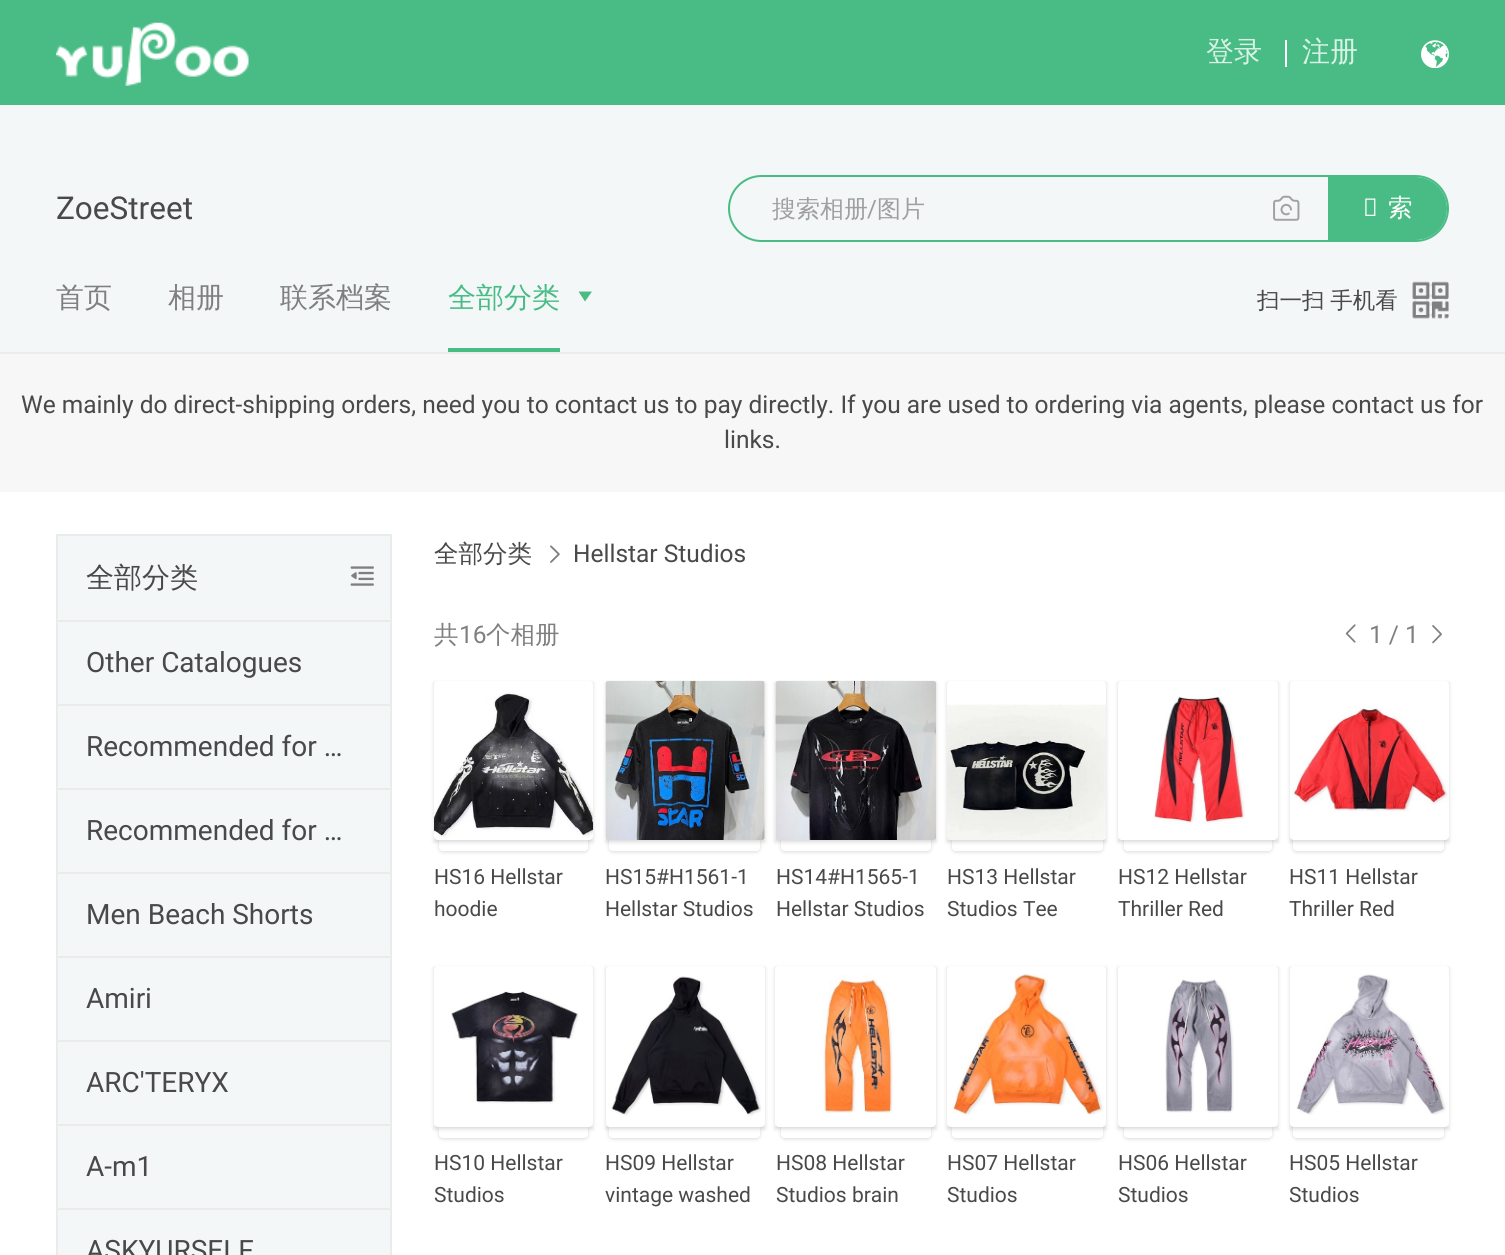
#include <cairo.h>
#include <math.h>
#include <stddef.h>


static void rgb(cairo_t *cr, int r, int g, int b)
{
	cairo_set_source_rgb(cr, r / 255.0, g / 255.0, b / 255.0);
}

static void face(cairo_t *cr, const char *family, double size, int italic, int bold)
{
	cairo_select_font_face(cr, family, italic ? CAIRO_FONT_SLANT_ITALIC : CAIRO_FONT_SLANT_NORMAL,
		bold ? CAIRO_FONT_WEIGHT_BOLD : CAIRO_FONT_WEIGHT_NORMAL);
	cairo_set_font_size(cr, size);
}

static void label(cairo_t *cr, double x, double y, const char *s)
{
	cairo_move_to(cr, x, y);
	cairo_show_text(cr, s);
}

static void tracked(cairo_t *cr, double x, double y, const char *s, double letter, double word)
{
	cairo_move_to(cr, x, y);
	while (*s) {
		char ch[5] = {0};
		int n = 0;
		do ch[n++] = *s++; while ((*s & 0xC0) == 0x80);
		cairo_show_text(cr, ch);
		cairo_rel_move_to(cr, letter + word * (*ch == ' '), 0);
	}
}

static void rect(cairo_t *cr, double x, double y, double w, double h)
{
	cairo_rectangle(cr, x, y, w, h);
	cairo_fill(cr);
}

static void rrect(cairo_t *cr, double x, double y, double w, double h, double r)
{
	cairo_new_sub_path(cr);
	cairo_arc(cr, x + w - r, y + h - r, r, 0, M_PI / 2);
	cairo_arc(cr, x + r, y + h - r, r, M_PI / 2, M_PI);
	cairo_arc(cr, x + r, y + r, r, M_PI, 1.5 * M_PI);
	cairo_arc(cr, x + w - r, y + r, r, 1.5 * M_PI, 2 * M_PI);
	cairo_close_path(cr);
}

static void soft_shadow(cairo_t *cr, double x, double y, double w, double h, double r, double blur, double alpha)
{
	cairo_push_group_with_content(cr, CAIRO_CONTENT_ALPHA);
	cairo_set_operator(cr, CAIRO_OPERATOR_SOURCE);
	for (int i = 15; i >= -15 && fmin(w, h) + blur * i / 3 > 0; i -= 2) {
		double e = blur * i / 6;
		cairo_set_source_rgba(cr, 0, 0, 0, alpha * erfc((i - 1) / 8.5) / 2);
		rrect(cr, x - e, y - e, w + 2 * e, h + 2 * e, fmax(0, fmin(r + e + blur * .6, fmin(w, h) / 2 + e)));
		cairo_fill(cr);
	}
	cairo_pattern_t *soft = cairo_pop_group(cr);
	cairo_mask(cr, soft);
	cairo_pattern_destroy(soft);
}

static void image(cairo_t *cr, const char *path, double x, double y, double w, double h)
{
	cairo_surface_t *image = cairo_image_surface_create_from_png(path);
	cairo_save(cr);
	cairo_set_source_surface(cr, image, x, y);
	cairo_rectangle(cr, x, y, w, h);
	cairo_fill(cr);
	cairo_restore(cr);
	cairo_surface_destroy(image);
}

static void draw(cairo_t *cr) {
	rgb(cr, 255, 255, 255);
	cairo_paint(cr);
	rgb(cr, 73, 188, 133);
	rect(cr, 0, 0, 1505, 105);
	image(cr, "image0.png", 56, 22, 193, 64);
	face(cr, "WenQuanYi Zen Hei Medium", 28, 0, 0);
	rgb(cr, 219, 242, 231);
	label(cr, 1206, 61, "登录");
	rgb(cr, 255, 255, 255);
	rect(cr, 1285, 40, 2, 27);
	rgb(cr, 219, 242, 231);
	label(cr, 1302, 61, "注册");
	image(cr, "image1.png", 1421, 40, 28, 28);
	rgb(cr, 243, 247, 247);
	rect(cr, 0, 105, 1505, 247);
	face(cr, "Roboto", 31.5, 0, 0);
	rgb(cr, 73, 73, 73);
	label(cr, 56, 219, "ZoeStreet");
	rrect(cr, 729, 176, 719, 65, 32.5);
	rgb(cr, 73, 188, 133);
	cairo_stroke(cr);
	face(cr, "WenQuanYi Zen Hei Medium", 24, 0, 0);
	rgb(cr, 159, 159, 159);
	label(cr, 772, 217, "搜索相册");
	face(cr, "Roboto", 24, 0, 0);
	label(cr, 867, 217, "/");
	face(cr, "WenQuanYi Zen Hei Medium", 24, 0, 0);
	label(cr, 877, 217, "图片");
	image(cr, "image2.png", 1273, 195, 27, 26);
	rgb(cr, 73, 188, 133);
	cairo_new_path(cr);
	cairo_move_to(cr, 1329, 178);
	cairo_line_to(cr, 1415.5, 178);
	cairo_curve_to(cr, 1432.5, 178, 1446, 191.5, 1446, 208.5);
	cairo_curve_to(cr, 1446, 225.5, 1432.5, 239, 1415.5, 239);
	cairo_line_to(cr, 1329, 239);
	cairo_close_path(cr);
	cairo_fill_preserve(cr);
	cairo_stroke(cr);
	face(cr, "Noto Sans", 24.5, 0, 0);
	rgb(cr, 255, 255, 255);
	label(cr, 1363, 216, "搜");
	face(cr, "WenQuanYi Zen Hei Medium", 24.5, 0, 0);
	label(cr, 1388, 216, "索");
	face(cr, "WenQuanYi Zen Hei Medium", 28, 0, 0);
	rgb(cr, 127, 127, 127);
	label(cr, 56, 307, "首页");
	label(cr, 168, 307, "相册");
	label(cr, 280, 307, "联系档案");
	rgb(cr, 73, 188, 133);
	label(cr, 448, 307, "全部分类");
	cairo_new_path(cr);
	cairo_move_to(cr, 585, 301.5);
	cairo_line_to(cr, 578.5, 291.5);
	cairo_line_to(cr, 592, 291.5);
	cairo_close_path(cr);
	cairo_fill(cr);
	rect(cr, 448, 348, 112, 4);
	face(cr, "WenQuanYi Zen Hei Medium", 22.5, 0, 0);
	rgb(cr, 73, 73, 73);
	tracked(cr, 1257, 308, "扫一扫 手机看", 0, -1);
	image(cr, "image3.png", 1412, 281, 37, 38);
	rgb(cr, 247, 247, 247);
	rect(cr, 0, 354, 1505, 138);
	rgb(cr, 236, 236, 236);
	rect(cr, 0, 352, 1505, 2);
	face(cr, "Roboto", 24.5, 0, 0);
	rgb(cr, 73, 73, 73);
	label(cr, 21, 413, "We mainly do direct-shipping orders, need you to contact us to pay directly. If you are used to ordering via agents, please contact us for");
	label(cr, 724, 448, "links.");
	rgb(cr, 243, 247, 247);
	cairo_rectangle(cr, 57, 535, 334, 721);
	cairo_fill_preserve(cr);
	rgb(cr, 235, 235, 235);
	cairo_stroke(cr);
	face(cr, "WenQuanYi Zen Hei Medium", 28, 0, 0);
	rgb(cr, 73, 73, 73);
	label(cr, 86, 587, "全部分类");
	rgb(cr, 235, 235, 235);
	rect(cr, 58, 620, 332, 2);
	face(cr, "Roboto", 28, 0, 0);
	rgb(cr, 73, 73, 73);
	label(cr, 86, 672, "Other Catalogues");
	rgb(cr, 235, 235, 235);
	rect(cr, 58, 704, 332, 2);
	rgb(cr, 73, 73, 73);
	label(cr, 86, 756, "Recommended for …");
	rgb(cr, 235, 235, 235);
	rect(cr, 58, 788, 332, 2);
	rgb(cr, 73, 73, 73);
	label(cr, 86, 840, "Recommended for …");
	rgb(cr, 235, 235, 235);
	rect(cr, 58, 872, 332, 2);
	rgb(cr, 73, 73, 73);
	label(cr, 86, 924, "Men Beach Shorts");
	rgb(cr, 235, 235, 235);
	rect(cr, 58, 956, 332, 2);
	rgb(cr, 73, 73, 73);
	label(cr, 86, 1008, "Amiri");
	rgb(cr, 235, 235, 235);
	rect(cr, 58, 1040, 332, 2);
	rgb(cr, 73, 73, 73);
	label(cr, 86, 1092, "ARC'TERYX");
	rgb(cr, 235, 235, 235);
	rect(cr, 58, 1124, 332, 2);
	rgb(cr, 73, 73, 73);
	label(cr, 86, 1176, "A-m1");
	rgb(cr, 235, 235, 235);
	rect(cr, 58, 1208, 332, 2);
	rgb(cr, 73, 73, 73);
	label(cr, 86, 1260, "ASKYURSELF");
	image(cr, "image4.png", 350, 566, 24, 20);
	face(cr, "WenQuanYi Zen Hei Medium", 24.5, 0, 0);
	label(cr, 434, 562, "全部分类");
	image(cr, "image5.png", 550, 545, 10, 18);
	face(cr, "Roboto", 24.5, 0, 0);
	label(cr, 573, 562, "Hellstar Studios");
	face(cr, "WenQuanYi Zen Hei Medium", 24.5, 0, 0);
	rgb(cr, 127, 127, 127);
	label(cr, 434, 643, "共");
	face(cr, "Roboto", 24.5, 0, 0);
	label(cr, 459, 643, "16");
	face(cr, "WenQuanYi Zen Hei Medium", 24.5, 0, 0);
	label(cr, 486, 643, "个相册");
	image(cr, "image6.png", 1345, 624, 11, 19);
	face(cr, "Roboto", 24.5, 0, 0);
	label(cr, 1369, 643, "1 / 1");
	image(cr, "image7.png", 1432, 625, 10, 19);
	rgb(cr, 0, 0, 0);
	soft_shadow(cr, 434, 683, 159, 159, 0, 2, 0.15);
	cairo_save(cr);
	cairo_set_fill_rule(cr, CAIRO_FILL_RULE_EVEN_ODD);
	cairo_new_path(cr);
	cairo_move_to(cr, 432, 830);
	cairo_line_to(cr, 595, 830);
	cairo_line_to(cr, 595, 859);
	cairo_line_to(cr, 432, 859);
	cairo_close_path(cr);
	cairo_move_to(cr, 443, 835);
	cairo_line_to(cr, 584, 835);
	cairo_curve_to(cr, 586, 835, 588, 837, 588, 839);
	cairo_line_to(cr, 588, 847);
	cairo_curve_to(cr, 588, 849, 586, 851, 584, 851);
	cairo_line_to(cr, 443, 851);
	cairo_curve_to(cr, 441, 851, 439, 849, 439, 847);
	cairo_line_to(cr, 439, 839);
	cairo_curve_to(cr, 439, 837, 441, 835, 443, 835);
	cairo_close_path(cr);
	cairo_clip(cr);
	soft_shadow(cr, 439, 837, 149, 15, 4, 2, 0.15);
	cairo_restore(cr);
	rgb(cr, 255, 255, 255);
	rrect(cr, 434, 681, 159, 159, 4);
	cairo_fill(cr);
	image(cr, "image8.png", 434, 692, 160, 146);
	face(cr, "Roboto", 21, 0, 0);
	rgb(cr, 73, 73, 73);
	label(cr, 434, 884, "HS16 Hellstar");
	label(cr, 434, 916, "hoodie");
	rgb(cr, 0, 0, 0);
	soft_shadow(cr, 606, 683, 159, 159, 0, 2, 0.15);
	cairo_save(cr);
	cairo_set_fill_rule(cr, CAIRO_FILL_RULE_EVEN_ODD);
	cairo_new_path(cr);
	cairo_move_to(cr, 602, 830);
	cairo_line_to(cr, 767, 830);
	cairo_line_to(cr, 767, 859);
	cairo_line_to(cr, 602, 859);
	cairo_close_path(cr);
	cairo_move_to(cr, 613, 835);
	cairo_line_to(cr, 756, 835);
	cairo_curve_to(cr, 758, 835, 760, 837, 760, 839);
	cairo_line_to(cr, 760, 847);
	cairo_curve_to(cr, 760, 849, 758, 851, 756, 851);
	cairo_line_to(cr, 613, 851);
	cairo_curve_to(cr, 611, 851, 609, 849, 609, 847);
	cairo_line_to(cr, 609, 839);
	cairo_curve_to(cr, 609, 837, 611, 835, 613, 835);
	cairo_close_path(cr);
	cairo_clip(cr);
	soft_shadow(cr, 609, 837, 151, 15, 4, 2, 0.15);
	cairo_restore(cr);
	rgb(cr, 255, 255, 255);
	rrect(cr, 606, 681, 159, 159, 4);
	cairo_fill(cr);
	image(cr, "image9.png", 605, 680, 160, 160);
	rgb(cr, 73, 73, 73);
	label(cr, 605, 884, "HS15#H1561-1");
	label(cr, 605, 916, "Hellstar Studios");
	rgb(cr, 0, 0, 0);
	soft_shadow(cr, 775, 683, 161, 159, 0, 2, 0.15);
	cairo_save(cr);
	cairo_set_fill_rule(cr, CAIRO_FILL_RULE_EVEN_ODD);
	cairo_new_path(cr);
	cairo_move_to(cr, 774, 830);
	cairo_line_to(cr, 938, 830);
	cairo_line_to(cr, 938, 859);
	cairo_line_to(cr, 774, 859);
	cairo_close_path(cr);
	cairo_move_to(cr, 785, 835);
	cairo_line_to(cr, 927, 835);
	cairo_curve_to(cr, 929, 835, 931, 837, 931, 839);
	cairo_line_to(cr, 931, 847);
	cairo_curve_to(cr, 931, 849, 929, 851, 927, 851);
	cairo_line_to(cr, 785, 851);
	cairo_curve_to(cr, 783, 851, 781, 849, 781, 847);
	cairo_line_to(cr, 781, 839);
	cairo_curve_to(cr, 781, 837, 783, 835, 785, 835);
	cairo_close_path(cr);
	cairo_clip(cr);
	soft_shadow(cr, 781, 837, 150, 15, 4, 2, 0.15);
	cairo_restore(cr);
	rgb(cr, 255, 255, 255);
	rrect(cr, 775, 681, 161, 159, 4);
	cairo_fill(cr);
	image(cr, "image10.png", 775, 680, 162, 160);
	rgb(cr, 73, 73, 73);
	label(cr, 776, 884, "HS14#H1565-1");
	label(cr, 776, 916, "Hellstar Studios");
	rgb(cr, 0, 0, 0);
	soft_shadow(cr, 947, 683, 159, 159, 0, 2, 0.15);
	cairo_save(cr);
	cairo_set_fill_rule(cr, CAIRO_FILL_RULE_EVEN_ODD);
	cairo_new_path(cr);
	cairo_move_to(cr, 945, 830);
	cairo_line_to(cr, 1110, 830);
	cairo_line_to(cr, 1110, 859);
	cairo_line_to(cr, 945, 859);
	cairo_close_path(cr);
	cairo_move_to(cr, 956, 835);
	cairo_line_to(cr, 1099, 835);
	cairo_curve_to(cr, 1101, 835, 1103, 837, 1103, 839);
	cairo_line_to(cr, 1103, 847);
	cairo_curve_to(cr, 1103, 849, 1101, 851, 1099, 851);
	cairo_line_to(cr, 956, 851);
	cairo_curve_to(cr, 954, 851, 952, 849, 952, 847);
	cairo_line_to(cr, 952, 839);
	cairo_curve_to(cr, 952, 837, 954, 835, 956, 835);
	cairo_close_path(cr);
	cairo_clip(cr);
	soft_shadow(cr, 952, 837, 151, 15, 4, 2, 0.15);
	cairo_restore(cr);
	rgb(cr, 255, 255, 255);
	rrect(cr, 947, 681, 159, 159, 4);
	cairo_fill(cr);
	image(cr, "image11.png", 947, 704, 159, 136);
	rgb(cr, 73, 73, 73);
	label(cr, 947, 884, "HS13 Hellstar");
	label(cr, 947, 916, "Studios Tee");
	rgb(cr, 0, 0, 0);
	soft_shadow(cr, 1118, 683, 160, 159, 0, 2, 0.15);
	cairo_save(cr);
	cairo_set_fill_rule(cr, CAIRO_FILL_RULE_EVEN_ODD);
	cairo_new_path(cr);
	cairo_move_to(cr, 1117, 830);
	cairo_line_to(cr, 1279, 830);
	cairo_line_to(cr, 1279, 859);
	cairo_line_to(cr, 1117, 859);
	cairo_close_path(cr);
	cairo_move_to(cr, 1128, 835);
	cairo_line_to(cr, 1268, 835);
	cairo_curve_to(cr, 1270, 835, 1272, 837, 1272, 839);
	cairo_line_to(cr, 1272, 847);
	cairo_curve_to(cr, 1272, 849, 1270, 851, 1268, 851);
	cairo_line_to(cr, 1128, 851);
	cairo_curve_to(cr, 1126, 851, 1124, 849, 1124, 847);
	cairo_line_to(cr, 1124, 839);
	cairo_curve_to(cr, 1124, 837, 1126, 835, 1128, 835);
	cairo_close_path(cr);
	cairo_clip(cr);
	soft_shadow(cr, 1124, 837, 148, 15, 4, 2, 0.15);
	cairo_restore(cr);
	rgb(cr, 255, 255, 255);
	rrect(cr, 1118, 681, 160, 159, 4);
	cairo_fill(cr);
	image(cr, "image12.png", 1154, 696, 91, 129);
	rgb(cr, 73, 73, 73);
	label(cr, 1118, 884, "HS12 Hellstar");
	label(cr, 1118, 916, "Thriller Red");
	rgb(cr, 0, 0, 0);
	soft_shadow(cr, 1290, 683, 159, 159, 0, 2, 0.15);
	cairo_save(cr);
	cairo_set_fill_rule(cr, CAIRO_FILL_RULE_EVEN_ODD);
	cairo_new_path(cr);
	cairo_move_to(cr, 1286, 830);
	cairo_line_to(cr, 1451, 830);
	cairo_line_to(cr, 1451, 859);
	cairo_line_to(cr, 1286, 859);
	cairo_close_path(cr);
	cairo_move_to(cr, 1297, 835);
	cairo_line_to(cr, 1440, 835);
	cairo_curve_to(cr, 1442, 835, 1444, 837, 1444, 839);
	cairo_line_to(cr, 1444, 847);
	cairo_curve_to(cr, 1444, 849, 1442, 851, 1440, 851);
	cairo_line_to(cr, 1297, 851);
	cairo_curve_to(cr, 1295, 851, 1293, 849, 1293, 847);
	cairo_line_to(cr, 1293, 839);
	cairo_curve_to(cr, 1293, 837, 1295, 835, 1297, 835);
	cairo_close_path(cr);
	cairo_clip(cr);
	soft_shadow(cr, 1293, 837, 151, 15, 4, 2, 0.15);
	cairo_restore(cr);
	rgb(cr, 255, 255, 255);
	rrect(cr, 1290, 681, 159, 159, 4);
	cairo_fill(cr);
	image(cr, "image13.png", 1292, 705, 157, 107);
	rgb(cr, 73, 73, 73);
	label(cr, 1289, 884, "HS11 Hellstar");
	label(cr, 1289, 916, "Thriller Red");
	rgb(cr, 0, 0, 0);
	soft_shadow(cr, 434, 968, 159, 161, 0, 2, 0.15);
	cairo_save(cr);
	cairo_set_fill_rule(cr, CAIRO_FILL_RULE_EVEN_ODD);
	cairo_new_path(cr);
	cairo_move_to(cr, 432, 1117);
	cairo_line_to(cr, 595, 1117);
	cairo_line_to(cr, 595, 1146);
	cairo_line_to(cr, 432, 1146);
	cairo_close_path(cr);
	cairo_move_to(cr, 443, 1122);
	cairo_line_to(cr, 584, 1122);
	cairo_curve_to(cr, 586, 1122, 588, 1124, 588, 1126);
	cairo_line_to(cr, 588, 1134);
	cairo_curve_to(cr, 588, 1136, 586, 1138, 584, 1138);
	cairo_line_to(cr, 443, 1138);
	cairo_curve_to(cr, 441, 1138, 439, 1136, 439, 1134);
	cairo_line_to(cr, 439, 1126);
	cairo_curve_to(cr, 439, 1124, 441, 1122, 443, 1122);
	cairo_close_path(cr);
	cairo_clip(cr);
	soft_shadow(cr, 439, 1124, 149, 15, 4, 2, 0.15);
	cairo_restore(cr);
	rgb(cr, 255, 255, 255);
	rrect(cr, 434, 966, 159, 161, 4);
	cairo_fill(cr);
	image(cr, "image14.png", 451, 991, 128, 113);
	rgb(cr, 73, 73, 73);
	label(cr, 434, 1170, "HS10 Hellstar");
	label(cr, 434, 1202, "Studios");
	rgb(cr, 0, 0, 0);
	soft_shadow(cr, 606, 968, 159, 161, 0, 2, 0.15);
	cairo_save(cr);
	cairo_set_fill_rule(cr, CAIRO_FILL_RULE_EVEN_ODD);
	cairo_new_path(cr);
	cairo_move_to(cr, 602, 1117);
	cairo_line_to(cr, 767, 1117);
	cairo_line_to(cr, 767, 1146);
	cairo_line_to(cr, 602, 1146);
	cairo_close_path(cr);
	cairo_move_to(cr, 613, 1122);
	cairo_line_to(cr, 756, 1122);
	cairo_curve_to(cr, 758, 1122, 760, 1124, 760, 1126);
	cairo_line_to(cr, 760, 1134);
	cairo_curve_to(cr, 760, 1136, 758, 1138, 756, 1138);
	cairo_line_to(cr, 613, 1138);
	cairo_curve_to(cr, 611, 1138, 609, 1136, 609, 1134);
	cairo_line_to(cr, 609, 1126);
	cairo_curve_to(cr, 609, 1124, 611, 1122, 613, 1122);
	cairo_close_path(cr);
	cairo_clip(cr);
	soft_shadow(cr, 609, 1124, 151, 15, 4, 2, 0.15);
	cairo_restore(cr);
	rgb(cr, 255, 255, 255);
	rrect(cr, 606, 966, 159, 161, 4);
	cairo_fill(cr);
	image(cr, "image15.png", 611, 976, 151, 140);
	rgb(cr, 73, 73, 73);
	label(cr, 605, 1170, "HS09 Hellstar");
	label(cr, 605, 1202, "vintage washed");
	rgb(cr, 0, 0, 0);
	soft_shadow(cr, 775, 968, 161, 161, 0, 2, 0.15);
	cairo_save(cr);
	cairo_set_fill_rule(cr, CAIRO_FILL_RULE_EVEN_ODD);
	cairo_new_path(cr);
	cairo_move_to(cr, 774, 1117);
	cairo_line_to(cr, 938, 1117);
	cairo_line_to(cr, 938, 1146);
	cairo_line_to(cr, 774, 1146);
	cairo_close_path(cr);
	cairo_move_to(cr, 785, 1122);
	cairo_line_to(cr, 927, 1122);
	cairo_curve_to(cr, 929, 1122, 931, 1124, 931, 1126);
	cairo_line_to(cr, 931, 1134);
	cairo_curve_to(cr, 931, 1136, 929, 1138, 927, 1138);
	cairo_line_to(cr, 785, 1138);
	cairo_curve_to(cr, 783, 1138, 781, 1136, 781, 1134);
	cairo_line_to(cr, 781, 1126);
	cairo_curve_to(cr, 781, 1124, 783, 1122, 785, 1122);
	cairo_close_path(cr);
	cairo_clip(cr);
	soft_shadow(cr, 781, 1124, 150, 15, 4, 2, 0.15);
	cairo_restore(cr);
	rgb(cr, 255, 255, 255);
	rrect(cr, 775, 966, 161, 161, 4);
	cairo_fill(cr);
	image(cr, "image16.png", 821, 974, 72, 139);
	rgb(cr, 73, 73, 73);
	label(cr, 776, 1170, "HS08 Hellstar");
	label(cr, 776, 1202, "Studios brain");
	rgb(cr, 0, 0, 0);
	soft_shadow(cr, 947, 968, 159, 161, 0, 2, 0.15);
	cairo_save(cr);
	cairo_set_fill_rule(cr, CAIRO_FILL_RULE_EVEN_ODD);
	cairo_new_path(cr);
	cairo_move_to(cr, 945, 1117);
	cairo_line_to(cr, 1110, 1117);
	cairo_line_to(cr, 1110, 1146);
	cairo_line_to(cr, 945, 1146);
	cairo_close_path(cr);
	cairo_move_to(cr, 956, 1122);
	cairo_line_to(cr, 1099, 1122);
	cairo_curve_to(cr, 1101, 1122, 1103, 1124, 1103, 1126);
	cairo_line_to(cr, 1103, 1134);
	cairo_curve_to(cr, 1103, 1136, 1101, 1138, 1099, 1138);
	cairo_line_to(cr, 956, 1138);
	cairo_curve_to(cr, 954, 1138, 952, 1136, 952, 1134);
	cairo_line_to(cr, 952, 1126);
	cairo_curve_to(cr, 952, 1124, 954, 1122, 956, 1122);
	cairo_close_path(cr);
	cairo_clip(cr);
	soft_shadow(cr, 952, 1124, 151, 15, 4, 2, 0.15);
	cairo_restore(cr);
	rgb(cr, 255, 255, 255);
	rrect(cr, 947, 966, 159, 161, 4);
	cairo_fill(cr);
	image(cr, "image17.png", 952, 974, 152, 143);
	rgb(cr, 73, 73, 73);
	label(cr, 947, 1170, "HS07 Hellstar");
	label(cr, 947, 1202, "Studios");
	rgb(cr, 0, 0, 0);
	soft_shadow(cr, 1118, 968, 160, 161, 0, 2, 0.15);
	cairo_save(cr);
	cairo_set_fill_rule(cr, CAIRO_FILL_RULE_EVEN_ODD);
	cairo_new_path(cr);
	cairo_move_to(cr, 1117, 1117);
	cairo_line_to(cr, 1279, 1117);
	cairo_line_to(cr, 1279, 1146);
	cairo_line_to(cr, 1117, 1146);
	cairo_close_path(cr);
	cairo_move_to(cr, 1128, 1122);
	cairo_line_to(cr, 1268, 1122);
	cairo_curve_to(cr, 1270, 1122, 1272, 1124, 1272, 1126);
	cairo_line_to(cr, 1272, 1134);
	cairo_curve_to(cr, 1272, 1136, 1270, 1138, 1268, 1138);
	cairo_line_to(cr, 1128, 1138);
	cairo_curve_to(cr, 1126, 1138, 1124, 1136, 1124, 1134);
	cairo_line_to(cr, 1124, 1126);
	cairo_curve_to(cr, 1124, 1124, 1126, 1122, 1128, 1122);
	cairo_close_path(cr);
	cairo_clip(cr);
	soft_shadow(cr, 1124, 1124, 148, 15, 4, 2, 0.15);
	cairo_restore(cr);
	rgb(cr, 255, 255, 255);
	rrect(cr, 1118, 966, 160, 161, 4);
	cairo_fill(cr);
	image(cr, "image18.png", 1165, 979, 69, 134);
	rgb(cr, 73, 73, 73);
	label(cr, 1118, 1170, "HS06 Hellstar");
	label(cr, 1118, 1202, "Studios");
	rgb(cr, 0, 0, 0);
	soft_shadow(cr, 1290, 968, 159, 161, 0, 2, 0.15);
	cairo_save(cr);
	cairo_set_fill_rule(cr, CAIRO_FILL_RULE_EVEN_ODD);
	cairo_new_path(cr);
	cairo_move_to(cr, 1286, 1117);
	cairo_line_to(cr, 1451, 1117);
	cairo_line_to(cr, 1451, 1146);
	cairo_line_to(cr, 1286, 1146);
	cairo_close_path(cr);
	cairo_move_to(cr, 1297, 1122);
	cairo_line_to(cr, 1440, 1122);
	cairo_curve_to(cr, 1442, 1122, 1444, 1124, 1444, 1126);
	cairo_line_to(cr, 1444, 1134);
	cairo_curve_to(cr, 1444, 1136, 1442, 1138, 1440, 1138);
	cairo_line_to(cr, 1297, 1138);
	cairo_curve_to(cr, 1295, 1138, 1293, 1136, 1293, 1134);
	cairo_line_to(cr, 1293, 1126);
	cairo_curve_to(cr, 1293, 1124, 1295, 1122, 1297, 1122);
	cairo_close_path(cr);
	cairo_clip(cr);
	soft_shadow(cr, 1293, 1124, 151, 15, 4, 2, 0.15);
	cairo_restore(cr);
	rgb(cr, 255, 255, 255);
	rrect(cr, 1290, 966, 159, 161, 4);
	cairo_fill(cr);
	image(cr, "image19.png", 1296, 974, 150, 141);
	rgb(cr, 73, 73, 73);
	label(cr, 1289, 1170, "HS05 Hellstar");
	label(cr, 1289, 1202, "Studios");
}

int main(void) {
	cairo_surface_t *surface = cairo_image_surface_create(CAIRO_FORMAT_RGB24, 1505, 1255);
	cairo_t *cr = cairo_create(surface);
	cairo_font_options_t *options = cairo_font_options_create();
	cairo_font_options_set_hint_metrics(options, CAIRO_HINT_METRICS_OFF);
	cairo_font_options_set_hint_style(options, CAIRO_HINT_STYLE_NONE);
	cairo_set_font_options(cr, options);
	cairo_set_miter_limit(cr, 4);
	draw(cr);
	cairo_surface_write_to_png(surface, "render.png");
	cairo_font_options_destroy(options);
	cairo_destroy(cr);
	cairo_surface_destroy(surface);
	return 0;
}
